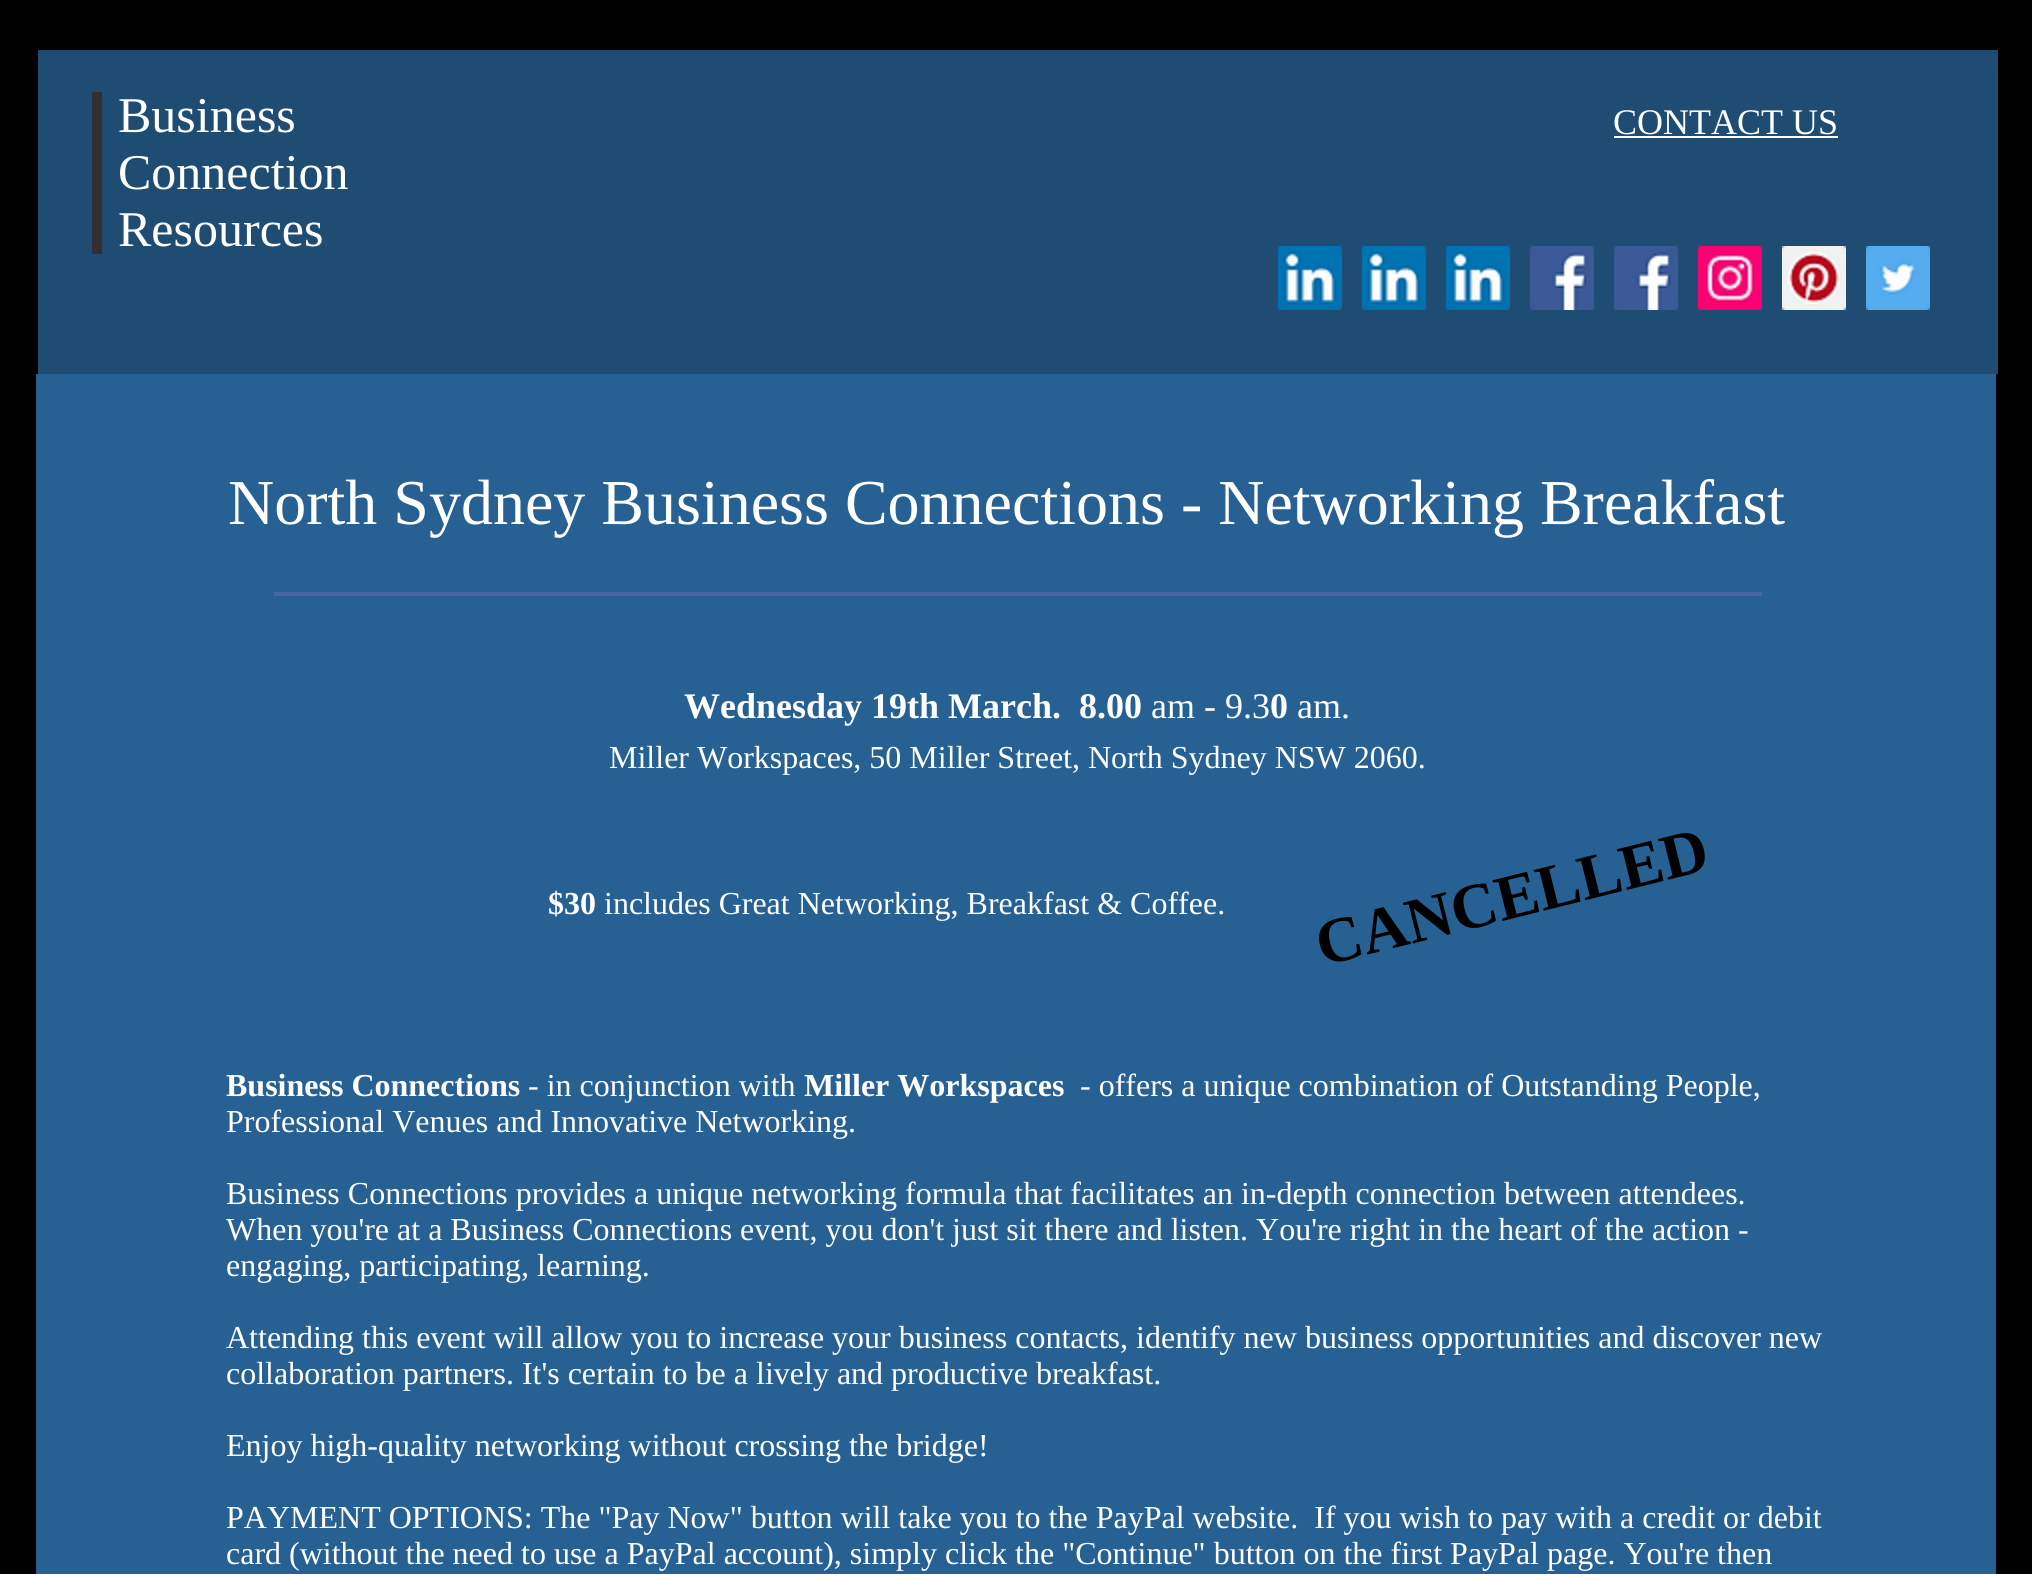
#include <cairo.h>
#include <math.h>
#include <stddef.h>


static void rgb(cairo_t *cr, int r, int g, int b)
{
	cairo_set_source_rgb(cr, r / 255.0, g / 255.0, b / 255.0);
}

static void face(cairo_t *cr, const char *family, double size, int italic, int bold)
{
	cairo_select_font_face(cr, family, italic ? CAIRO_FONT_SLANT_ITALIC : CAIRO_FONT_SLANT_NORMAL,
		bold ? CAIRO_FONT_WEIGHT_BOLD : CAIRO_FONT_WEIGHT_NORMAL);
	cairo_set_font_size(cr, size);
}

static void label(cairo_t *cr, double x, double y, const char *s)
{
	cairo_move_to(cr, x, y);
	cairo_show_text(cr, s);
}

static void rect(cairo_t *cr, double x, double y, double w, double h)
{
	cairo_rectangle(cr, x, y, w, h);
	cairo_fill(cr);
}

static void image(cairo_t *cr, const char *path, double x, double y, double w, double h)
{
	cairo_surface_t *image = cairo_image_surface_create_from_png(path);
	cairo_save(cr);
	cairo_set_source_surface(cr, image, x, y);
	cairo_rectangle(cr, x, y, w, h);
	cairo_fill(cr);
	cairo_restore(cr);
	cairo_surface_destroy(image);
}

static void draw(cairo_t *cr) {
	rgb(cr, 0, 0, 0);
	cairo_paint(cr);
	rgb(cr, 30, 76, 114);
	rect(cr, 38, 50, 1960, 324);
	rgb(cr, 49, 47, 49);
	rect(cr, 92, 92, 10, 162);
	face(cr, "Liberation Serif", 50, 0, 0);
	rgb(cr, 255, 255, 255);
	label(cr, 118, 132, "Business");
	label(cr, 118, 189, "Connection");
	label(cr, 118, 246, "Resources");
	face(cr, "Liberation Serif", 36, 0, 0);
	label(cr, 1613, 134, "CONTACT US");
	rect(cr, 1614, 136, 224, 2);
	image(cr, "image0.png", 1278, 246, 64, 64);
	image(cr, "image0.png", 1362, 246, 64, 64);
	image(cr, "image0.png", 1446, 246, 64, 64);
	image(cr, "image1.png", 1530, 246, 64, 64);
	image(cr, "image1.png", 1614, 246, 64, 64);
	image(cr, "image2.png", 1698, 246, 64, 64);
	image(cr, "image3.png", 1782, 246, 64, 64);
	image(cr, "image4.png", 1866, 246, 64, 64);
	rgb(cr, 39, 97, 147);
	rect(cr, 36, 374, 1960, 1200);
	face(cr, "Liberation Serif", 64, 0, 0);
	rgb(cr, 255, 255, 255);
	label(cr, 228, 524, "North Sydney Business Connections - Networking Breakfast");
	rgb(cr, 79, 99, 163);
	rect(cr, 274, 592, 1488, 4);
	face(cr, "Liberation Serif", 36, 0, 1);
	rgb(cr, 255, 255, 255);
	label(cr, 684, 718, "Wednesday 19th March.  8.00");
	face(cr, "Liberation Serif", 36, 0, 0);
	label(cr, 1151, 718, "am - 9.3");
	face(cr, "Liberation Serif", 36, 0, 1);
	label(cr, 1270, 718, "0");
	face(cr, "Liberation Serif", 36, 0, 0);
	label(cr, 1297, 718, "am.");
	face(cr, "Liberation Serif", 32, 0, 0);
	label(cr, 609, 768, "Miller Workspaces, 50 Miller Street, North Sydney NSW 2060.");
	face(cr, "Liberation Serif", 32, 0, 1);
	label(cr, 548, 914, "$30");
	face(cr, "Liberation Serif", 32, 0, 0);
	label(cr, 604, 914, "includes Great Networking, Breakfast & Coffee.");
	face(cr, "Liberation Serif", 64, 0, 1);
	rgb(cr, 0, 0, 0);
	cairo_save(cr);
	cairo_translate(cr, 1322, 966);
	cairo_rotate(cr, -14 * M_PI / 180);
	label(cr, 0, 0, "CANCELLED");
	cairo_restore(cr);
	face(cr, "Liberation Serif", 32, 0, 1);
	rgb(cr, 255, 255, 255);
	label(cr, 226, 1096, "Business Connections");
	face(cr, "Liberation Serif", 32, 0, 0);
	label(cr, 528, 1096, "- in conjunction with");
	face(cr, "Liberation Serif", 32, 0, 1);
	label(cr, 804, 1096, "Miller Workspaces");
	face(cr, "Liberation Serif", 32, 0, 0);
	label(cr, 1080, 1096, "- offers a unique combination of Outstanding People,");
	label(cr, 226, 1132, "Professional Venues and Innovative Networking.");
	label(cr, 226, 1204, "Business Connections provides a unique networking formula that facilitates an in-depth connection between attendees.");
	label(cr, 226, 1240, "When you're at a Business Connections event, you don't just sit there and listen. You're right in the heart of the action -");
	label(cr, 226, 1276, "engaging, participating, learning.");
	label(cr, 226, 1348, "Attending this event will allow you to increase your business contacts, identify new business opportunities and discover new");
	label(cr, 226, 1384, "collaboration partners. It's certain to be a lively and productive breakfast.");
	label(cr, 226, 1456, "Enjoy high-quality networking without crossing the bridge!");
	label(cr, 226, 1528, "PAYMENT OPTIONS: The \"Pay Now\" button will take you to the PayPal website.  If you wish to pay with a credit or debit");
	label(cr, 226, 1564, "card (without the need to use a PayPal account), simply click the \"Continue\" button on the first PayPal page. You're then");
}

int main(void) {
	cairo_surface_t *surface = cairo_image_surface_create(CAIRO_FORMAT_RGB24, 2032, 1574);
	cairo_t *cr = cairo_create(surface);
	cairo_font_options_t *options = cairo_font_options_create();
	cairo_font_options_set_hint_metrics(options, CAIRO_HINT_METRICS_OFF);
	cairo_font_options_set_hint_style(options, CAIRO_HINT_STYLE_NONE);
	cairo_set_font_options(cr, options);
	cairo_set_miter_limit(cr, 4);
	draw(cr);
	cairo_surface_write_to_png(surface, "render.png");
	cairo_font_options_destroy(options);
	cairo_destroy(cr);
	cairo_surface_destroy(surface);
	return 0;
}
